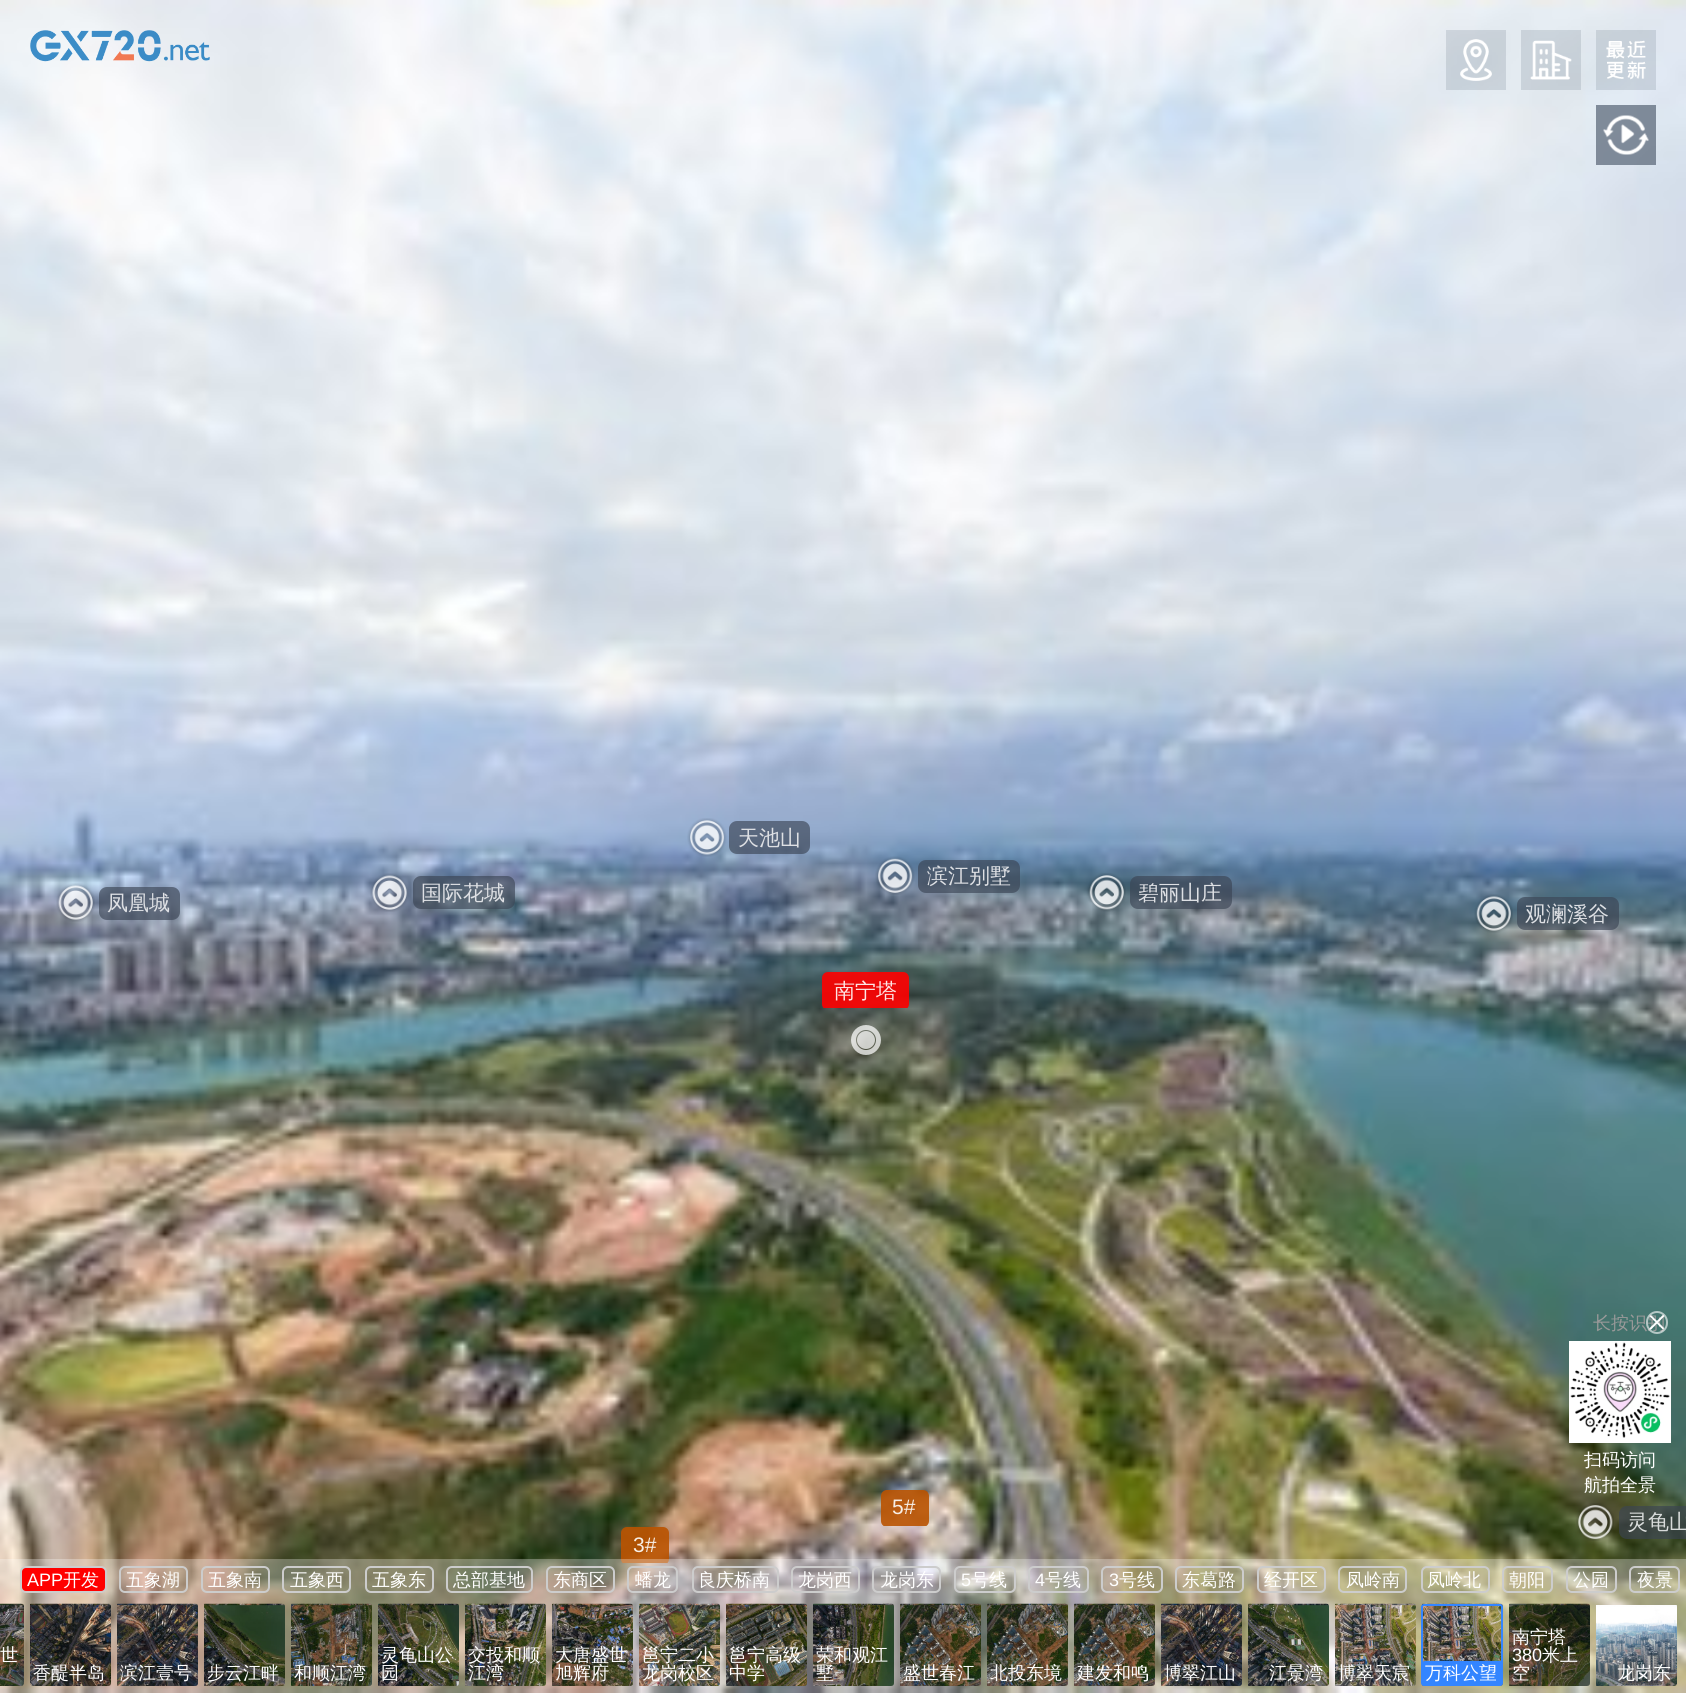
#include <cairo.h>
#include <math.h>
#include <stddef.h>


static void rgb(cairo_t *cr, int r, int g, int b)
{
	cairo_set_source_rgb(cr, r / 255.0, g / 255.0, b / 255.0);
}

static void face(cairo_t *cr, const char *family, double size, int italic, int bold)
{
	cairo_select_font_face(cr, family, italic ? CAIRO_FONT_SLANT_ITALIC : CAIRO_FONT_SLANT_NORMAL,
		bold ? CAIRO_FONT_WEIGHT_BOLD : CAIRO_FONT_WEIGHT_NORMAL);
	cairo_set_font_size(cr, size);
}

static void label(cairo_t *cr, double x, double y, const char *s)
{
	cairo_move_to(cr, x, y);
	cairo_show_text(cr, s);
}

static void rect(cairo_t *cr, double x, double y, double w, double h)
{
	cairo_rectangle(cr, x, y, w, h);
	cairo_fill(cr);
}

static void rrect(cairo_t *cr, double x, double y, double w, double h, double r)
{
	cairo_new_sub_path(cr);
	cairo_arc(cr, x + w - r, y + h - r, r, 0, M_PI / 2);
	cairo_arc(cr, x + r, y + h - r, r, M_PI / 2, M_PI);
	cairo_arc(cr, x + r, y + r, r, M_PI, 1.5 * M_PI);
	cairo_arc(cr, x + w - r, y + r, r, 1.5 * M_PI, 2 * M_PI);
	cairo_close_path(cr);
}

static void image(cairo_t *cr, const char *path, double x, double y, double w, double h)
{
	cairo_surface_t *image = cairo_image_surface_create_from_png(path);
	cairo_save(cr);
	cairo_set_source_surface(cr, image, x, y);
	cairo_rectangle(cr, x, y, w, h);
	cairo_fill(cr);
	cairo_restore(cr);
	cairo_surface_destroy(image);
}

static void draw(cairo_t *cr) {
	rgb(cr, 255, 255, 255);
	cairo_paint(cr);
	image(cr, "image5.png", 0, 0, 1686, 1693);
	image(cr, "image0.png", 30, 30, 180, 32);
	cairo_set_source_rgba(cr, 0.404, 0.451, 0.514, 0.2);
	rect(cr, 1446, 30, 60, 60);
	image(cr, "image1.png", 1460, 39, 32, 42);
	rect(cr, 1521, 30, 60, 60);
	image(cr, "image2.png", 1530, 40, 42, 40);
	rect(cr, 1596, 30, 60, 60);
	image(cr, "image3.png", 1606, 40, 40, 40);
	cairo_set_source_rgba(cr, 0.404, 0.451, 0.514, 0.8);
	rect(cr, 1596, 105, 60, 60);
	image(cr, "image4.png", 1603, 115, 46, 40);
	image(cr, "image6.png", 687, 818, 40, 39);
	cairo_set_source_rgba(cr, 0.227, 0.267, 0.329, 0.64);
	rrect(cr, 729, 821, 81, 33, 8);
	cairo_fill(cr);
	face(cr, "WenQuanYi Zen Hei Medium", 21, 0, 0);
	rgb(cr, 222, 224, 228);
	label(cr, 738, 845, "天池山");
	image(cr, "image7.png", 875, 856, 40, 39);
	cairo_set_source_rgba(cr, 0.227, 0.267, 0.329, 0.64);
	rrect(cr, 918, 860, 102, 33, 8);
	cairo_fill(cr);
	rgb(cr, 222, 224, 228);
	label(cr, 927, 883, "滨江别墅");
	image(cr, "image8.png", 56, 883, 39, 39);
	cairo_set_source_rgba(cr, 0.227, 0.267, 0.329, 0.64);
	rrect(cr, 99, 887, 81, 33, 8);
	cairo_fill(cr);
	rgb(cr, 222, 224, 228);
	label(cr, 107, 910, "凤凰城");
	image(cr, "image9.png", 370, 873, 39, 39);
	cairo_set_source_rgba(cr, 0.227, 0.267, 0.329, 0.64);
	rrect(cr, 413, 876, 102, 33, 8);
	cairo_fill(cr);
	rgb(cr, 222, 224, 228);
	label(cr, 421, 900, "国际花城");
	image(cr, "image10.png", 1087, 873, 39, 39);
	cairo_set_source_rgba(cr, 0.227, 0.267, 0.329, 0.64);
	rrect(cr, 1130, 876, 102, 33, 8);
	cairo_fill(cr);
	rgb(cr, 222, 224, 228);
	label(cr, 1138, 900, "碧丽山庄");
	image(cr, "image11.png", 1474, 894, 39, 39);
	cairo_set_source_rgba(cr, 0.227, 0.267, 0.329, 0.64);
	rrect(cr, 1517, 897, 102, 33, 8);
	cairo_fill(cr);
	rgb(cr, 222, 224, 228);
	label(cr, 1525, 921, "观澜溪谷");
	cairo_save(cr);
	cairo_rectangle(cr, 822, 971, 180, 37);
	cairo_clip(cr);
	cairo_set_source_rgba(cr, 1, 0, 0, 0.9);
	rrect(cr, 822, 972, 87, 38, 6);
	cairo_fill(cr);
	cairo_restore(cr);
	rgb(cr, 253, 230, 230);
	label(cr, 834, 998, "南宁塔");
	cairo_set_source_rgba(cr, 1, 1, 1, 0.72);
	cairo_new_path(cr);
	cairo_arc(cr, 866, 1040, 9, 0, 2 * M_PI);
	cairo_fill(cr);
	cairo_arc(cr, 866, 1040, 12.5, 0, 2 * M_PI);
	cairo_set_line_width(cr, 5);
	cairo_stroke(cr);
	cairo_save(cr);
	cairo_rectangle(cr, 881, 1488, 180, 38);
	cairo_clip(cr);
	cairo_set_source_rgba(cr, 0.733, 0.329, 0, 0.9);
	rrect(cr, 881, 1490, 48, 37, 6);
	cairo_fill(cr);
	cairo_restore(cr);
	face(cr, "Liberation Sans", 21, 0, 0);
	rgb(cr, 247, 238, 230);
	label(cr, 892, 1514, "5#");
	image(cr, "image12.png", 1576, 1503, 38, 38);
	cairo_set_source_rgba(cr, 0.227, 0.267, 0.329, 0.64);
	cairo_new_path(cr);
	cairo_move_to(cr, 1627, 1506);
	cairo_line_to(cr, 1686, 1506);
	cairo_line_to(cr, 1686, 1539);
	cairo_line_to(cr, 1627, 1539);
	cairo_curve_to(cr, 1622.5, 1539, 1619, 1535.5, 1619, 1531);
	cairo_line_to(cr, 1619, 1514);
	cairo_curve_to(cr, 1619, 1509.5, 1622.5, 1506, 1627, 1506);
	cairo_close_path(cr);
	cairo_fill(cr);
	face(cr, "WenQuanYi Zen Hei Medium", 21, 0, 0);
	rgb(cr, 216, 219, 218);
	label(cr, 1627, 1529, "灵龟山");
	cairo_save(cr);
	cairo_rectangle(cr, 621, 1526, 180, 37);
	cairo_clip(cr);
	cairo_set_source_rgba(cr, 0.733, 0.329, 0, 0.9);
	rrect(cr, 621, 1527, 48, 38, 6);
	cairo_fill(cr);
	cairo_restore(cr);
	face(cr, "Liberation Sans", 21, 0, 0);
	rgb(cr, 247, 238, 230);
	label(cr, 633, 1552, "3#");
	face(cr, "WenQuanYi Zen Hei Medium", 18, 0, 0);
	rgb(cr, 153, 153, 153);
	label(cr, 1593, 1329, "长按识别");
	image(cr, "image13.png", 1649, 1315, 16, 15);
	rrect(cr, 1647, 1312, 20, 21, 10);
	cairo_set_source_rgba(cr, 1, 1, 1, 0.6);
	cairo_set_line_width(cr, 2);
	cairo_stroke(cr);
	image(cr, "image14.png", 1569, 1341, 102, 102);
	rgb(cr, 255, 255, 255);
	label(cr, 1584, 1466, "扫码访问");
	label(cr, 1584, 1491, "航拍全景");
	cairo_set_source_rgba(cr, 1, 1, 1, 0.3);
	rect(cr, 0, 1559, 1686, 134);
	rgb(cr, 255, 0, 0);
	rrect(cr, 21, 1567, 85, 25, 5);
	cairo_fill_preserve(cr);
	rgb(cr, 204, 204, 204);
	cairo_stroke(cr);
	face(cr, "Liberation Sans", 18, 0, 0);
	rgb(cr, 255, 255, 255);
	label(cr, 27, 1586, "APP");
	face(cr, "WenQuanYi Zen Hei Medium", 18, 0, 0);
	label(cr, 63, 1586, "开发");
	rrect(cr, 120, 1567, 67, 25, 5);
	rgb(cr, 204, 204, 204);
	cairo_stroke(cr);
	rgb(cr, 255, 255, 255);
	label(cr, 126, 1586, "五象湖");
	rrect(cr, 202, 1567, 67, 25, 5);
	rgb(cr, 204, 204, 204);
	cairo_stroke(cr);
	rgb(cr, 255, 255, 255);
	label(cr, 208, 1586, "五象南");
	rrect(cr, 283, 1567, 67, 25, 5);
	rgb(cr, 204, 204, 204);
	cairo_stroke(cr);
	rgb(cr, 255, 255, 255);
	label(cr, 290, 1586, "五象西");
	rrect(cr, 366, 1567, 67, 25, 5);
	rgb(cr, 204, 204, 204);
	cairo_stroke(cr);
	rgb(cr, 255, 255, 255);
	label(cr, 372, 1586, "五象东");
	rrect(cr, 447, 1567, 85, 25, 5);
	rgb(cr, 204, 204, 204);
	cairo_stroke(cr);
	rgb(cr, 255, 255, 255);
	label(cr, 453, 1586, "总部基地");
	rrect(cr, 547, 1567, 67, 25, 5);
	rgb(cr, 204, 204, 204);
	cairo_stroke(cr);
	rgb(cr, 255, 255, 255);
	label(cr, 553, 1586, "东商区");
	rrect(cr, 628, 1567, 49, 25, 5);
	rgb(cr, 204, 204, 204);
	cairo_stroke(cr);
	rgb(cr, 255, 255, 255);
	label(cr, 635, 1586, "蟠龙");
	rrect(cr, 693, 1567, 85, 25, 5);
	rgb(cr, 204, 204, 204);
	cairo_stroke(cr);
	rgb(cr, 255, 255, 255);
	label(cr, 698, 1586, "良庆桥南");
	rrect(cr, 792, 1567, 67, 25, 5);
	rgb(cr, 204, 204, 204);
	cairo_stroke(cr);
	rgb(cr, 255, 255, 255);
	label(cr, 798, 1586, "龙岗西");
	rrect(cr, 873, 1567, 67, 25, 5);
	rgb(cr, 204, 204, 204);
	cairo_stroke(cr);
	rgb(cr, 255, 255, 255);
	label(cr, 880, 1586, "龙岗东");
	rrect(cr, 955, 1567, 60, 25, 5);
	rgb(cr, 204, 204, 204);
	cairo_stroke(cr);
	face(cr, "Liberation Sans", 18, 0, 0);
	rgb(cr, 255, 255, 255);
	label(cr, 961, 1586, "5");
	face(cr, "WenQuanYi Zen Hei Medium", 18, 0, 0);
	label(cr, 971, 1586, "号线");
	rrect(cr, 1029, 1567, 59, 25, 5);
	rgb(cr, 204, 204, 204);
	cairo_stroke(cr);
	face(cr, "Liberation Sans", 18, 0, 0);
	rgb(cr, 255, 255, 255);
	label(cr, 1035, 1586, "4");
	face(cr, "WenQuanYi Zen Hei Medium", 18, 0, 0);
	label(cr, 1045, 1586, "号线");
	rrect(cr, 1102, 1567, 60, 25, 5);
	rgb(cr, 204, 204, 204);
	cairo_stroke(cr);
	face(cr, "Liberation Sans", 18, 0, 0);
	rgb(cr, 255, 255, 255);
	label(cr, 1109, 1586, "3");
	face(cr, "WenQuanYi Zen Hei Medium", 18, 0, 0);
	label(cr, 1119, 1586, "号线");
	rrect(cr, 1176, 1567, 67, 25, 5);
	rgb(cr, 204, 204, 204);
	cairo_stroke(cr);
	rgb(cr, 255, 255, 255);
	label(cr, 1182, 1586, "东葛路");
	rrect(cr, 1258, 1567, 67, 25, 5);
	rgb(cr, 204, 204, 204);
	cairo_stroke(cr);
	rgb(cr, 255, 255, 255);
	label(cr, 1264, 1586, "经开区");
	rrect(cr, 1339, 1567, 67, 25, 5);
	rgb(cr, 204, 204, 204);
	cairo_stroke(cr);
	rgb(cr, 255, 255, 255);
	label(cr, 1346, 1586, "凤岭南");
	rrect(cr, 1422, 1567, 67, 25, 5);
	rgb(cr, 204, 204, 204);
	cairo_stroke(cr);
	rgb(cr, 255, 255, 255);
	label(cr, 1427, 1586, "凤岭北");
	rrect(cr, 1503, 1567, 49, 25, 5);
	rgb(cr, 204, 204, 204);
	cairo_stroke(cr);
	rgb(cr, 255, 255, 255);
	label(cr, 1509, 1586, "朝阳");
	rrect(cr, 1567, 1567, 49, 25, 5);
	rgb(cr, 204, 204, 204);
	cairo_stroke(cr);
	rgb(cr, 255, 255, 255);
	label(cr, 1573, 1586, "公园");
	rrect(cr, 1630, 1567, 49, 25, 5);
	rgb(cr, 204, 204, 204);
	cairo_stroke(cr);
	rgb(cr, 255, 255, 255);
	label(cr, 1637, 1586, "夜景");
	image(cr, "image15.png", 0, 1603, 24, 83);
	label(cr, 0, 1661, "世");
	image(cr, "image16.png", 30, 1603, 81, 83);
	label(cr, 33, 1679, "香醍半岛");
	image(cr, "image17.png", 117, 1603, 81, 83);
	label(cr, 120, 1679, "滨江壹号");
	image(cr, "image18.png", 204, 1603, 81, 83);
	label(cr, 207, 1679, "步云江畔");
	image(cr, "image19.png", 291, 1603, 81, 83);
	label(cr, 294, 1679, "和顺江湾");
	image(cr, "image20.png", 378, 1603, 81, 83);
	label(cr, 381, 1661, "灵龟山公");
	label(cr, 381, 1679, "园");
	image(cr, "image21.png", 465, 1603, 81, 83);
	label(cr, 468, 1661, "交投和顺");
	label(cr, 468, 1679, "江湾");
	image(cr, "image22.png", 552, 1603, 81, 83);
	label(cr, 555, 1661, "大唐盛世");
	label(cr, 555, 1679, "旭辉府");
	image(cr, "image23.png", 639, 1603, 81, 83);
	label(cr, 642, 1661, "邕宁二小");
	label(cr, 642, 1679, "龙岗校区");
	image(cr, "image24.png", 726, 1603, 81, 83);
	label(cr, 729, 1661, "邕宁高级");
	label(cr, 729, 1679, "中学");
	image(cr, "image25.png", 813, 1603, 81, 83);
	label(cr, 816, 1661, "荣和观江");
	label(cr, 816, 1679, "墅");
	image(cr, "image26.png", 900, 1603, 81, 83);
	label(cr, 903, 1679, "盛世春江");
	image(cr, "image27.png", 987, 1603, 81, 83);
	label(cr, 990, 1679, "北投东境");
	image(cr, "image28.png", 1074, 1603, 81, 83);
	label(cr, 1077, 1679, "建发和鸣");
	image(cr, "image29.png", 1161, 1603, 81, 83);
	label(cr, 1164, 1679, "博翠江山");
	image(cr, "image30.png", 1248, 1603, 81, 83);
	label(cr, 1269, 1679, "江景湾");
	image(cr, "image31.png", 1335, 1603, 81, 83);
	label(cr, 1338, 1679, "博翠天宸");
	image(cr, "image32.png", 1422, 1603, 81, 83);
	rrect(cr, 1422, 1605, 80, 80, 2);
	rgb(cr, 51, 133, 255);
	cairo_stroke(cr);
	cairo_new_path(cr);
	cairo_move_to(cr, 1425, 1661);
	cairo_line_to(cr, 1502, 1661);
	cairo_line_to(cr, 1502, 1685);
	cairo_line_to(cr, 1422, 1685);
	cairo_line_to(cr, 1422, 1664);
	cairo_curve_to(cr, 1422, 1662.5, 1423.5, 1661, 1425, 1661);
	cairo_close_path(cr);
	cairo_fill(cr);
	rgb(cr, 255, 255, 255);
	label(cr, 1425, 1679, "万科公望");
	image(cr, "image33.png", 1509, 1603, 81, 83);
	label(cr, 1512, 1643, "南宁塔");
	face(cr, "Liberation Sans", 18, 0, 0);
	label(cr, 1512, 1661, "380");
	face(cr, "WenQuanYi Zen Hei Medium", 18, 0, 0);
	label(cr, 1542, 1661, "米上");
	label(cr, 1512, 1679, "空");
	image(cr, "image34.png", 1596, 1605, 81, 81);
	label(cr, 1617, 1679, "龙岗东");
}

int main(void) {
	cairo_surface_t *surface = cairo_image_surface_create(CAIRO_FORMAT_RGB24, 1686, 1693);
	cairo_t *cr = cairo_create(surface);
	cairo_font_options_t *options = cairo_font_options_create();
	cairo_font_options_set_hint_metrics(options, CAIRO_HINT_METRICS_OFF);
	cairo_font_options_set_hint_style(options, CAIRO_HINT_STYLE_NONE);
	cairo_set_font_options(cr, options);
	cairo_set_miter_limit(cr, 4);
	draw(cr);
	cairo_surface_write_to_png(surface, "render.png");
	cairo_font_options_destroy(options);
	cairo_destroy(cr);
	cairo_surface_destroy(surface);
	return 0;
}
